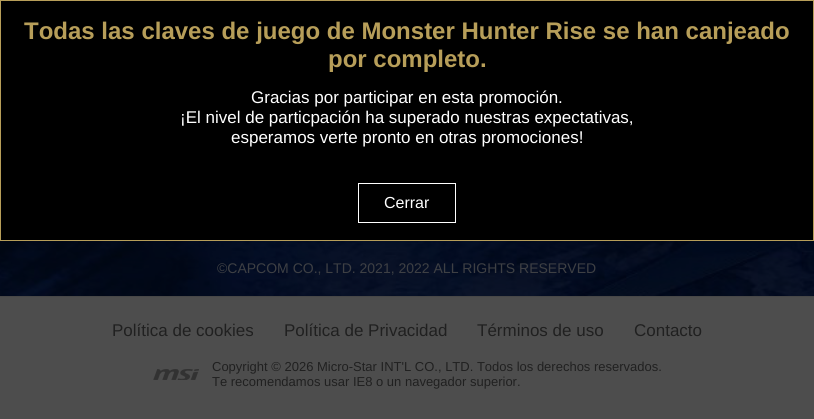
#include <cairo.h>
#include <math.h>
#include <stddef.h>


static void rgb(cairo_t *cr, int r, int g, int b)
{
	cairo_set_source_rgb(cr, r / 255.0, g / 255.0, b / 255.0);
}

static void face(cairo_t *cr, const char *family, double size, int italic, int bold)
{
	cairo_select_font_face(cr, family, italic ? CAIRO_FONT_SLANT_ITALIC : CAIRO_FONT_SLANT_NORMAL,
		bold ? CAIRO_FONT_WEIGHT_BOLD : CAIRO_FONT_WEIGHT_NORMAL);
	cairo_set_font_size(cr, size);
}

static void label(cairo_t *cr, double x, double y, const char *s)
{
	cairo_move_to(cr, x, y);
	cairo_show_text(cr, s);
}

static void rect(cairo_t *cr, double x, double y, double w, double h)
{
	cairo_rectangle(cr, x, y, w, h);
	cairo_fill(cr);
}

static void image(cairo_t *cr, const char *path, double x, double y, double w, double h)
{
	cairo_surface_t *image = cairo_image_surface_create_from_png(path);
	cairo_save(cr);
	cairo_set_source_surface(cr, image, x, y);
	cairo_rectangle(cr, x, y, w, h);
	cairo_fill(cr);
	cairo_restore(cr);
	cairo_surface_destroy(image);
}

static void draw(cairo_t *cr) {
	rgb(cr, 77, 77, 77);
	cairo_paint(cr);
	rgb(cr, 0, 0, 0);
	cairo_rectangle(cr, 0.5, 0.5, 813, 240);
	cairo_fill_preserve(cr);
	rgb(cr, 183, 158, 89);
	cairo_set_line_width(cr, 1);
	cairo_stroke(cr);
	face(cr, "Liberation Sans", 24, 0, 1);
	label(cr, 24, 39, "Todas las claves de juego de Monster Hunter Rise se han canjeado");
	label(cr, 328, 67, "por completo.");
	face(cr, "Liberation Sans", 17, 0, 0);
	rgb(cr, 255, 255, 255);
	label(cr, 251, 103, "Gracias por participar en esta promoción.");
	label(cr, 180, 123, "¡El nivel de particpación ha superado nuestras expectativas,");
	label(cr, 231, 143, "esperamos verte pronto en otras promociones!");
	cairo_rectangle(cr, 358.5, 183.5, 97, 39);
	cairo_stroke(cr);
	face(cr, "Liberation Sans", 16, 0, 0);
	label(cr, 384, 208, "Cerrar");
	image(cr, "image0.png", 0, 241, 814, 55);
	face(cr, "Liberation Sans", 14, 0, 0);
	rgb(cr, 62, 64, 68);
	label(cr, 217, 273, "©CAPCOM CO., LTD. 2021, 2022 ALL RIGHTS RESERVED");
	rgb(cr, 71, 71, 71);
	rect(cr, 0, 296, 814, 1);
	face(cr, "Liberation Sans", 17, 0, 0);
	rgb(cr, 32, 32, 32);
	label(cr, 112, 336, "Política de cookies");
	label(cr, 284, 336, "Política de Privacidad");
	label(cr, 477, 336, "Términos de uso");
	label(cr, 634, 336, "Contacto");
	image(cr, "image1.png", 153, 369, 46, 11);
	face(cr, "Liberation Sans", 13, 0, 0);
	label(cr, 212, 371, "Copyright © 2026 Micro-Star INT'L CO., LTD. Todos los derechos reservados.");
	label(cr, 212, 386, "Te recomendamos usar IE8 o un navegador superior.");
}

int main(void) {
	cairo_surface_t *surface = cairo_image_surface_create(CAIRO_FORMAT_RGB24, 814, 419);
	cairo_t *cr = cairo_create(surface);
	cairo_font_options_t *options = cairo_font_options_create();
	cairo_font_options_set_hint_metrics(options, CAIRO_HINT_METRICS_OFF);
	cairo_font_options_set_hint_style(options, CAIRO_HINT_STYLE_NONE);
	cairo_set_font_options(cr, options);
	cairo_set_miter_limit(cr, 4);
	draw(cr);
	cairo_surface_write_to_png(surface, "render.png");
	cairo_font_options_destroy(options);
	cairo_destroy(cr);
	cairo_surface_destroy(surface);
	return 0;
}
